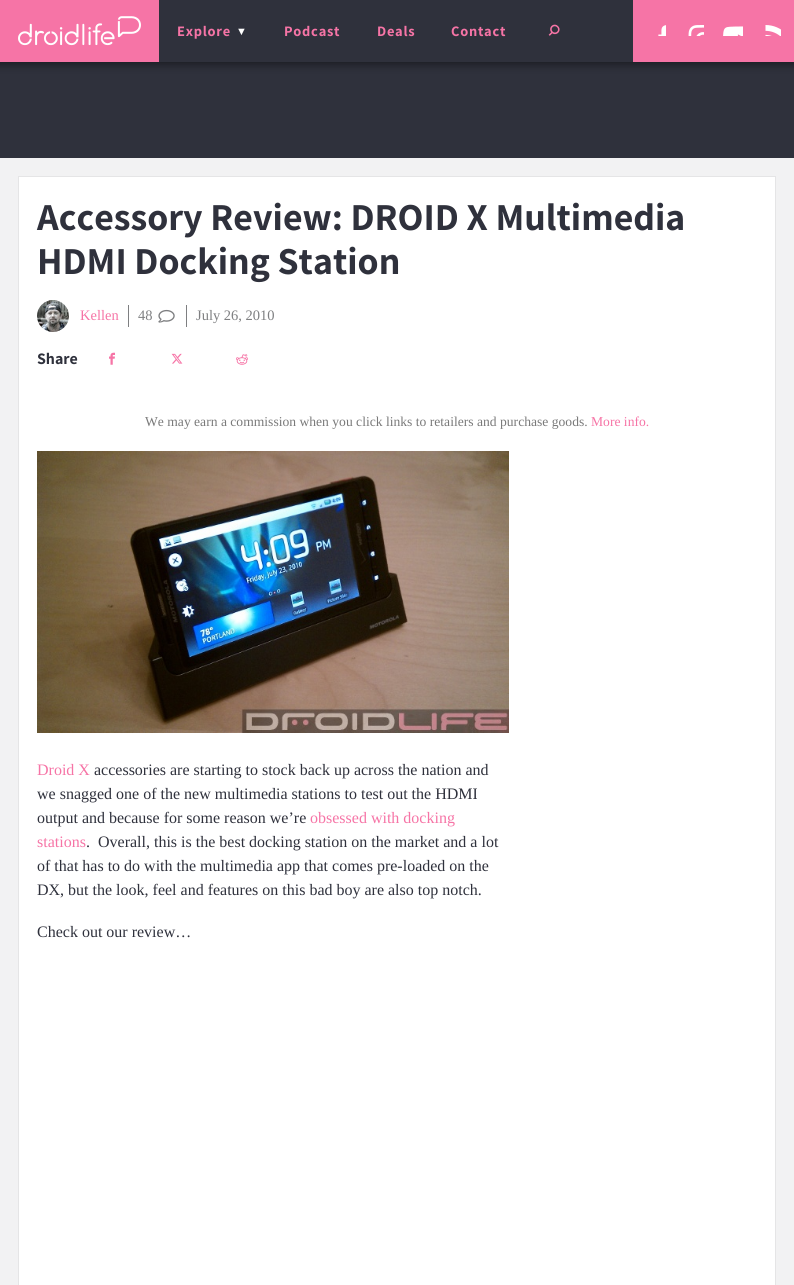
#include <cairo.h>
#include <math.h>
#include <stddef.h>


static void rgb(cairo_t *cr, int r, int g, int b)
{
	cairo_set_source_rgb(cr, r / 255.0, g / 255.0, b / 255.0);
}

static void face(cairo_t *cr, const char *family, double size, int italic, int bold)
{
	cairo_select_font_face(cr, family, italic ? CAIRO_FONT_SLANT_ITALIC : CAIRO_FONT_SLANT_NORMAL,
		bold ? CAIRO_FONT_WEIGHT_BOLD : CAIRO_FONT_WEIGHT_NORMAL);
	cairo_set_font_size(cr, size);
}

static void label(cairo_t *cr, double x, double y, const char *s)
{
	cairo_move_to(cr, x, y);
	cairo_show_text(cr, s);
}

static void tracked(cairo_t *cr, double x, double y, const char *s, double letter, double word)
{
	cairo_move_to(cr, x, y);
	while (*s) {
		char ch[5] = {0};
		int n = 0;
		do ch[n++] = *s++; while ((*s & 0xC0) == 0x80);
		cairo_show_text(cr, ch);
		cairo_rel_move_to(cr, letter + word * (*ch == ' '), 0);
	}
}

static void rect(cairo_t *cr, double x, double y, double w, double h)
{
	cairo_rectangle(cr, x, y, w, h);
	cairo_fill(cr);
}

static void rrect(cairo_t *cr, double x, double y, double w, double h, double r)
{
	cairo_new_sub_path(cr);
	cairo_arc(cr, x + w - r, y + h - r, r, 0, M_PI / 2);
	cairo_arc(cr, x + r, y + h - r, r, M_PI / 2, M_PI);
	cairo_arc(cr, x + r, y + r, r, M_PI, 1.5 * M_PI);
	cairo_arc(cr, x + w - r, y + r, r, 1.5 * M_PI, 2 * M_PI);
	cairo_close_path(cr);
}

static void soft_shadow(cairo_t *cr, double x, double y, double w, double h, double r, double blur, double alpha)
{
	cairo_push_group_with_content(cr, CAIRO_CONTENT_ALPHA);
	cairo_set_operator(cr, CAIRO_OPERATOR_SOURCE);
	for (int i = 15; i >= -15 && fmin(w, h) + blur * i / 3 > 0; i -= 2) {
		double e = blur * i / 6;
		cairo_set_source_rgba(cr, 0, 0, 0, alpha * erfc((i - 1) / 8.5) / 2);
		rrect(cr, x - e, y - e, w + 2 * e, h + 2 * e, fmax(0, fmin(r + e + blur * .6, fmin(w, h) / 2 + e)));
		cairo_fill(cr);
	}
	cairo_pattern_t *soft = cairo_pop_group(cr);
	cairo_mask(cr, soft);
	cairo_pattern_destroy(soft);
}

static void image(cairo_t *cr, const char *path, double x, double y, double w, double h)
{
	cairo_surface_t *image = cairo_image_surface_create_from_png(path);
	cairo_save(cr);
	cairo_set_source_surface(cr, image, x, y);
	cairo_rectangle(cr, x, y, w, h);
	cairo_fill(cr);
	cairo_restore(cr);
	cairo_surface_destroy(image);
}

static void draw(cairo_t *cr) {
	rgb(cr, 242, 242, 243);
	cairo_paint(cr);
	rgb(cr, 47, 49, 60);
	rect(cr, 0, 62, 794, 96);
	rgb(cr, 0, 0, 0);
	soft_shadow(cr, -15, -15, 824, 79, 0, 5, 0.5);
	rgb(cr, 246, 116, 166);
	rect(cr, 0, 0, 159, 62);
	image(cr, "image0.png", 18, 16, 123, 30);
	rgb(cr, 47, 49, 60);
	rect(cr, 159, 0, 474, 62);
	face(cr, "Assistant ExtraLight", 14.5, 0, 0);
	rgb(cr, 246, 116, 166);
	tracked(cr, 177, 36, "Explore", 0.75, 0);
	face(cr, "Liberation Sans", 11, 0, 0);
	rgb(cr, 255, 255, 255);
	tracked(cr, 236, 35, "▼", 0.75, 0);
	face(cr, "Assistant ExtraLight", 14.5, 0, 0);
	rgb(cr, 246, 116, 166);
	tracked(cr, 284, 36, "Podcast", 0.75, 0);
	tracked(cr, 377, 36, "Deals", 0.75, 0);
	tracked(cr, 451, 36, "Contact", 0.75, 0);
	image(cr, "image1.png", 548, 24, 12, 12);
	rect(cr, 633, 0, 161, 62);
	image(cr, "image2.png", 658, 25, 8, 11);
	image(cr, "image3.png", 688, 25, 16, 11);
	image(cr, "image4.png", 723, 26, 20, 10);
	image(cr, "image5.png", 765, 25, 16, 11);
	rgb(cr, 255, 255, 255);
	cairo_rectangle(cr, 18.5, 176.5, 757, 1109);
	cairo_fill_preserve(cr);
	rgb(cr, 229, 229, 230);
	cairo_set_line_width(cr, 1);
	cairo_stroke(cr);
	face(cr, "Assistant ExtraLight", 38.1, 0, 0);
	rgb(cr, 47, 49, 60);
	label(cr, 37, 230, "Accessory Review: DROID X Multimedia");
	label(cr, 37, 274, "HDMI Docking Station");
	image(cr, "image6.png", 37, 300, 32, 32);
	face(cr, "Liberation Serif", 14.5, 0, 0);
	rgb(cr, 246, 116, 166);
	label(cr, 80, 320, "Kellen");
	rgb(cr, 126, 127, 129);
	rect(cr, 128, 305, 1, 22);
	label(cr, 138, 320, "48");
	image(cr, "image7.png", 158, 309, 17, 14);
	rect(cr, 186, 305, 1, 22);
	label(cr, 196, 320, "July 26, 2010");
	face(cr, "Assistant ExtraLight", 16, 0, 0);
	rgb(cr, 47, 49, 60);
	label(cr, 37, 364, "Share");
	image(cr, "image8.png", 109, 352, 6, 13);
	image(cr, "image9.png", 171, 353, 12, 11);
	image(cr, "image10.png", 236, 354, 12, 11);
	face(cr, "Liberation Serif", 13.6, 0, 0);
	rgb(cr, 121, 121, 121);
	label(cr, 145, 426, "We may earn a commission when you click links to retailers and purchase goods.");
	rgb(cr, 246, 116, 166);
	label(cr, 591, 426, "More info.");
	image(cr, "image11.png", 37, 451, 472, 282);
	face(cr, "Liberation Serif", 16, 0, 0);
	label(cr, 37, 775, "Droid X");
	rgb(cr, 47, 49, 60);
	label(cr, 94, 775, "accessories are starting to stock back up across the nation and");
	label(cr, 37, 799, "we snagged one of the new multimedia stations to test out the HDMI");
	label(cr, 37, 823, "output and because for some reason we’re");
	rgb(cr, 246, 116, 166);
	label(cr, 310, 823, "obsessed with docking");
	label(cr, 37, 847, "stations");
	rgb(cr, 47, 49, 60);
	label(cr, 86, 847, ".  Overall, this is the best docking station on the market and a lot");
	label(cr, 37, 871, "of that has to do with the multimedia app that comes pre-loaded on the");
	label(cr, 37, 895, "DX, but the look, feel and features on this bad boy are also top notch.");
	label(cr, 37, 937, "Check out our review…");
}

int main(void) {
	cairo_surface_t *surface = cairo_image_surface_create(CAIRO_FORMAT_RGB24, 794, 1285);
	cairo_t *cr = cairo_create(surface);
	cairo_font_options_t *options = cairo_font_options_create();
	cairo_font_options_set_hint_metrics(options, CAIRO_HINT_METRICS_OFF);
	cairo_font_options_set_hint_style(options, CAIRO_HINT_STYLE_NONE);
	cairo_set_font_options(cr, options);
	cairo_set_miter_limit(cr, 4);
	draw(cr);
	cairo_surface_write_to_png(surface, "render.png");
	cairo_font_options_destroy(options);
	cairo_destroy(cr);
	cairo_surface_destroy(surface);
	return 0;
}
